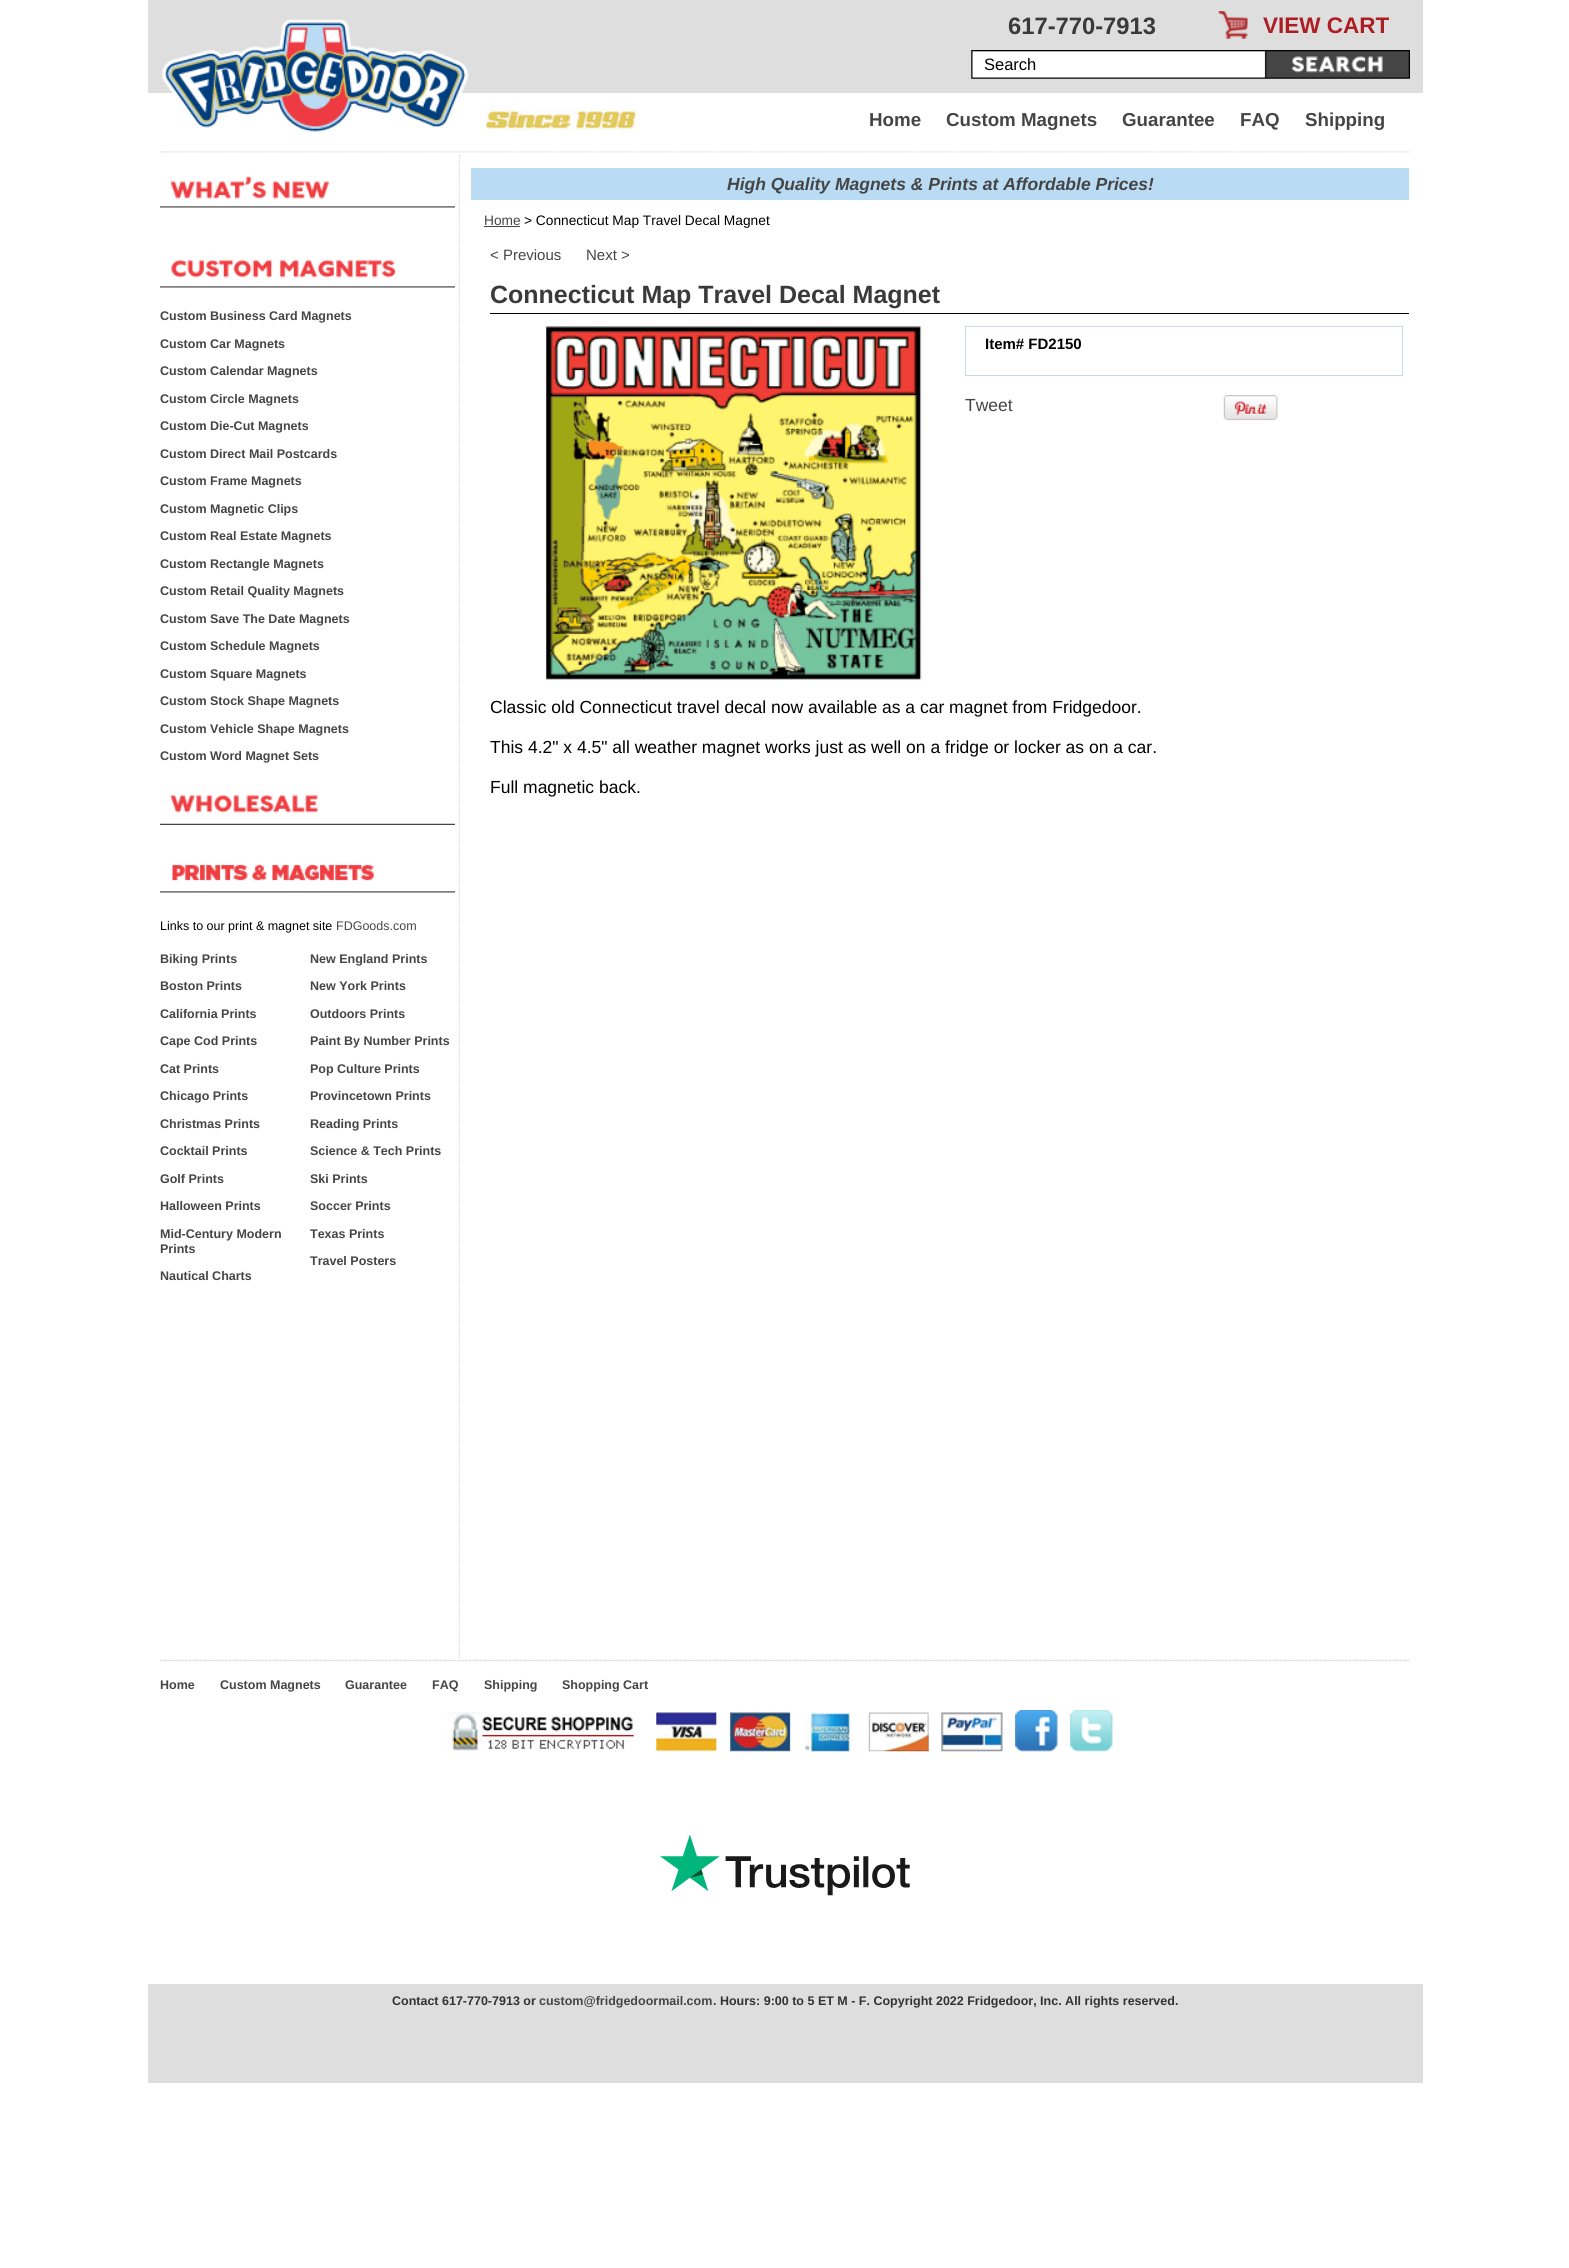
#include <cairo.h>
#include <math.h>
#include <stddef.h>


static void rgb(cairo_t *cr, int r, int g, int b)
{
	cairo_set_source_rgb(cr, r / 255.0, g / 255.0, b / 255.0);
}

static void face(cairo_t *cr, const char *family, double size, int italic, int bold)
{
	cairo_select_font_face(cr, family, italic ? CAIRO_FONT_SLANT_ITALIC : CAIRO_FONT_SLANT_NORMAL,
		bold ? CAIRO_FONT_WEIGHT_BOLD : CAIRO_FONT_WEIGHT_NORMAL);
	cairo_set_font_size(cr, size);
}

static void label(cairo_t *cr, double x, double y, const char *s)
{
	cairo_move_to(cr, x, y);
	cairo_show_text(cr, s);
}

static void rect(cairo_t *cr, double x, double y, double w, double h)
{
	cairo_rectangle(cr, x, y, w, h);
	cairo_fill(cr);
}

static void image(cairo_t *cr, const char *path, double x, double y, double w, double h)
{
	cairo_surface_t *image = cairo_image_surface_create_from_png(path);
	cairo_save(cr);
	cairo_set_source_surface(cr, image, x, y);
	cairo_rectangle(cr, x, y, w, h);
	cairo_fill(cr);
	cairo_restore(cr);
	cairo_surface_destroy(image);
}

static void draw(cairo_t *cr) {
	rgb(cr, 255, 255, 255);
	cairo_paint(cr);
	rgb(cr, 223, 222, 222);
	rect(cr, 148, 0, 1275, 93);
	image(cr, "image0.png", 160, 151, 1249, 2);
	image(cr, "image1.png", 162, 19, 307, 113);
	face(cr, "Liberation Sans", 23.75, 0, 1);
	rgb(cr, 58, 58, 58);
	label(cr, 1008, 34, "617-770-7913");
	image(cr, "image2.png", 1218, 11, 30, 28);
	face(cr, "Liberation Sans", 22.5, 0, 1);
	rgb(cr, 172, 30, 35);
	label(cr, 1263, 33, "VIEW CART");
	image(cr, "image3.png", 971, 50, 439, 29);
	face(cr, "Liberation Sans", 16.5, 0, 0);
	rgb(cr, 0, 0, 0);
	label(cr, 984, 70, "Search");
	image(cr, "image4.png", 485, 108, 153, 23);
	face(cr, "Liberation Sans", 18.75, 0, 1);
	rgb(cr, 69, 69, 69);
	label(cr, 869, 126, "Home");
	label(cr, 946, 126, "Custom Magnets");
	label(cr, 1122, 126, "Guarantee");
	label(cr, 1240, 126, "FAQ");
	label(cr, 1305, 126, "Shipping");
	image(cr, "image5.png", 458, 155, 2, 1504);
	image(cr, "image6.png", 160, 176, 295, 32);
	image(cr, "image7.png", 160, 259, 295, 29);
	face(cr, "Liberation Sans", 12.5, 0, 1);
	label(cr, 160, 320, "Custom Business Card Magnets");
	label(cr, 160, 348, "Custom Car Magnets");
	label(cr, 160, 375, "Custom Calendar Magnets");
	label(cr, 160, 403, "Custom Circle Magnets");
	label(cr, 160, 430, "Custom Die-Cut Magnets");
	label(cr, 160, 458, "Custom Direct Mail Postcards");
	label(cr, 160, 485, "Custom Frame Magnets");
	label(cr, 160, 513, "Custom Magnetic Clips");
	label(cr, 160, 540, "Custom Real Estate Magnets");
	label(cr, 160, 568, "Custom Rectangle Magnets");
	label(cr, 160, 595, "Custom Retail Quality Magnets");
	label(cr, 160, 623, "Custom Save The Date Magnets");
	label(cr, 160, 650, "Custom Schedule Magnets");
	label(cr, 160, 678, "Custom Square Magnets");
	label(cr, 160, 705, "Custom Stock Shape Magnets");
	label(cr, 160, 733, "Custom Vehicle Shape Magnets");
	label(cr, 160, 760, "Custom Word Magnet Sets");
	image(cr, "image8.png", 160, 794, 295, 31);
	image(cr, "image9.png", 160, 864, 295, 29);
	face(cr, "Liberation Sans", 12.5, 0, 0);
	rgb(cr, 0, 0, 0);
	label(cr, 160, 930, "Links to our print & magnet site");
	rgb(cr, 69, 69, 69);
	label(cr, 336, 930, "FDGoods.com");
	face(cr, "Liberation Sans", 12.5, 0, 1);
	label(cr, 160, 963, "Biking Prints");
	label(cr, 160, 990, "Boston Prints");
	label(cr, 160, 1018, "California Prints");
	label(cr, 160, 1045, "Cape Cod Prints");
	label(cr, 160, 1073, "Cat Prints");
	label(cr, 160, 1100, "Chicago Prints");
	label(cr, 160, 1128, "Christmas Prints");
	label(cr, 160, 1155, "Cocktail Prints");
	label(cr, 160, 1183, "Golf Prints");
	label(cr, 160, 1210, "Halloween Prints");
	label(cr, 160, 1238, "Mid-Century Modern");
	label(cr, 160, 1253, "Prints");
	label(cr, 160, 1280, "Nautical Charts");
	label(cr, 310, 963, "New England Prints");
	label(cr, 310, 990, "New York Prints");
	label(cr, 310, 1018, "Outdoors Prints");
	label(cr, 310, 1045, "Paint By Number Prints");
	label(cr, 310, 1073, "Pop Culture Prints");
	label(cr, 310, 1100, "Provincetown Prints");
	label(cr, 310, 1128, "Reading Prints");
	label(cr, 310, 1155, "Science & Tech Prints");
	label(cr, 310, 1183, "Ski Prints");
	label(cr, 310, 1210, "Soccer Prints");
	label(cr, 310, 1238, "Texas Prints");
	label(cr, 310, 1265, "Travel Posters");
	rgb(cr, 186, 219, 244);
	rect(cr, 471, 168, 938, 32);
	face(cr, "Liberation Sans", 17.5, 1, 1);
	rgb(cr, 69, 69, 69);
	label(cr, 727, 190, "High Quality Magnets & Prints at Affordable Prices!");
	face(cr, "Liberation Sans", 13.75, 0, 0);
	label(cr, 484, 225, "Home");
	rect(cr, 484, 226, 36, 1);
	rgb(cr, 0, 0, 0);
	label(cr, 524, 225, "> Connecticut Map Travel Decal Magnet");
	face(cr, "Liberation Sans", 15, 0, 0);
	rgb(cr, 69, 69, 69);
	label(cr, 490, 260, "< Previous");
	label(cr, 586, 260, "Next >");
	rgb(cr, 0, 0, 0);
	rect(cr, 490, 313, 919, 1);
	face(cr, "Liberation Sans", 25, 0, 1);
	rgb(cr, 58, 58, 58);
	label(cr, 490, 303, "Connecticut Map Travel Decal Magnet");
	image(cr, "image10.png", 546, 326, 376, 354);
	cairo_rectangle(cr, 965.5, 326.5, 437, 49);
	rgb(cr, 202, 214, 236);
	cairo_set_line_width(cr, 1);
	cairo_stroke(cr);
	face(cr, "Liberation Sans", 15, 0, 1);
	rgb(cr, 0, 0, 0);
	label(cr, 985, 349, "Item# FD2150");
	face(cr, "Liberation Sans", 17.5, 0, 0);
	rgb(cr, 69, 69, 69);
	label(cr, 965, 411, "Tweet");
	image(cr, "image11.png", 1223, 395, 55, 26);
	rgb(cr, 0, 0, 0);
	label(cr, 490, 713, "Classic old Connecticut travel decal now available as a car magnet from Fridgedoor.");
	label(cr, 490, 753, "This 4.2\" x 4.5\" all weather magnet works just as well on a fridge or locker as on a car.");
	label(cr, 490, 793, "Full magnetic back.");
	cairo_new_path(cr);
	cairo_move_to(cr, 160, 1660.5);
	cairo_line_to(cr, 1410, 1660.5);
	rgb(cr, 204, 204, 204);
	cairo_set_line_width(cr, 1.2);
	cairo_set_dash(cr, (double[]){1.25, 1.25}, 2, 0);
	cairo_stroke(cr);
	face(cr, "Liberation Sans", 12.5, 0, 1);
	rgb(cr, 69, 69, 69);
	label(cr, 160, 1689, "Home");
	label(cr, 220, 1689, "Custom Magnets");
	label(cr, 345, 1689, "Guarantee");
	label(cr, 432, 1689, "FAQ");
	label(cr, 484, 1689, "Shipping");
	label(cr, 562, 1689, "Shopping Cart");
	image(cr, "image12.png", 446, 1712, 557, 40);
	image(cr, "image13.png", 1015, 1710, 43, 42);
	image(cr, "image14.png", 1070, 1710, 43, 42);
	image(cr, "image15.png", 660, 1834, 250, 62);
	rgb(cr, 223, 222, 222);
	rect(cr, 148, 1984, 1275, 99);
	rgb(cr, 51, 51, 51);
	label(cr, 392, 2005, "Contact 617-770-7913 or");
	rgb(cr, 69, 69, 69);
	label(cr, 539, 2005, "custom@fridgedoormail.com");
	rgb(cr, 51, 51, 51);
	label(cr, 713, 2005, ". Hours: 9:00 to 5 ET M - F. Copyright 2022 Fridgedoor, Inc. All rights reserved.");
}

int main(void) {
	cairo_surface_t *surface = cairo_image_surface_create(CAIRO_FORMAT_RGB24, 1569, 2268);
	cairo_t *cr = cairo_create(surface);
	cairo_font_options_t *options = cairo_font_options_create();
	cairo_font_options_set_hint_metrics(options, CAIRO_HINT_METRICS_OFF);
	cairo_font_options_set_hint_style(options, CAIRO_HINT_STYLE_NONE);
	cairo_set_font_options(cr, options);
	cairo_set_miter_limit(cr, 4);
	draw(cr);
	cairo_surface_write_to_png(surface, "render.png");
	cairo_font_options_destroy(options);
	cairo_destroy(cr);
	cairo_surface_destroy(surface);
	return 0;
}
